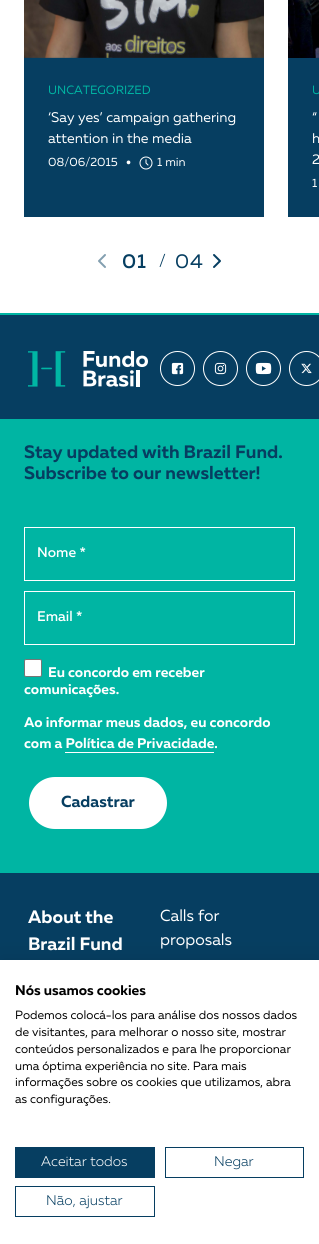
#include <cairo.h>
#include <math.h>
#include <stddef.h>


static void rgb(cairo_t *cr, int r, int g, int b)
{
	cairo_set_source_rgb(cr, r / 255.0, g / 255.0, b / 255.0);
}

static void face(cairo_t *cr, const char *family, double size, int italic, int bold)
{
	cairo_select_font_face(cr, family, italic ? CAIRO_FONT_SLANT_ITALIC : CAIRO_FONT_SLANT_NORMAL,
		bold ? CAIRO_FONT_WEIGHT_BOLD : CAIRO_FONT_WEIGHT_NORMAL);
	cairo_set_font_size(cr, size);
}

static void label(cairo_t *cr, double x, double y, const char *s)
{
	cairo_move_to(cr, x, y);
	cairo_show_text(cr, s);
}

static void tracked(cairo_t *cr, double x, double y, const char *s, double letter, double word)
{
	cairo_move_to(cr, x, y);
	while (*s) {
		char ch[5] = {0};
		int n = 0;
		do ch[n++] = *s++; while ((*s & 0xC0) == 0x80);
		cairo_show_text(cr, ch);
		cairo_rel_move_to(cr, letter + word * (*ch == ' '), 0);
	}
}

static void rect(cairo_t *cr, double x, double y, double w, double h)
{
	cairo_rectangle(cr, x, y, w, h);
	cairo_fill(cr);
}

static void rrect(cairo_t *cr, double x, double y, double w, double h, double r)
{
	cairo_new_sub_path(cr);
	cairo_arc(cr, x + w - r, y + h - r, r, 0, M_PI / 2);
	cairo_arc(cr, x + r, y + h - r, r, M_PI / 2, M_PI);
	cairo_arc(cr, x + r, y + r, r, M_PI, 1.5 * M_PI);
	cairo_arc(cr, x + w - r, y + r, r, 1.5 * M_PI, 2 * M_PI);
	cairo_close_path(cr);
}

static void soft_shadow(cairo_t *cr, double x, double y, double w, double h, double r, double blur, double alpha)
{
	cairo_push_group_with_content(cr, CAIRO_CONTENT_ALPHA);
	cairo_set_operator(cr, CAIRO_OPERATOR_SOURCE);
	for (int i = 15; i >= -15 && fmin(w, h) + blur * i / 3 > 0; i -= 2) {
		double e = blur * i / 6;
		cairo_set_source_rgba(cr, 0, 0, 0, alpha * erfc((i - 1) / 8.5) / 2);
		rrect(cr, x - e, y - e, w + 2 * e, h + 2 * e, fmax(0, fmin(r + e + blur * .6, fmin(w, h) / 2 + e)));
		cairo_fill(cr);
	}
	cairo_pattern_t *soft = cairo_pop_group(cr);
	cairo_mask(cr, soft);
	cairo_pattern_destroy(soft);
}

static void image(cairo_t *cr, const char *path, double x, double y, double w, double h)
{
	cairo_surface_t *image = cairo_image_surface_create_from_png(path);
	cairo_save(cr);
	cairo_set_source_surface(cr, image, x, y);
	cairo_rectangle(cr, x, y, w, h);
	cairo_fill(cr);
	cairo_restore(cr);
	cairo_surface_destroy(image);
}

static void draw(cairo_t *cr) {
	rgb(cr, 255, 255, 255);
	cairo_paint(cr);
	rgb(cr, 6, 62, 97);
	rect(cr, 24, 57, 240, 160);
	image(cr, "image0.png", 24, 0, 240, 58);
	face(cr, "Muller", 12, 0, 0);
	rgb(cr, 0, 181, 163);
	label(cr, 48, 94, "UNCATEGORIZED");
	face(cr, "Muller", 14, 0, 0);
	rgb(cr, 255, 255, 255);
	label(cr, 48, 122, "‘Say yes’ campaign gathering");
	label(cr, 48, 143, "attention in the media");
	face(cr, "Muller", 12, 0, 0);
	label(cr, 48, 166, "08/06/2015");
	image(cr, "image1.png", 126, 160, 5, 5);
	image(cr, "image2.png", 139, 156, 14, 14);
	label(cr, 157, 166, "1 min");
	rgb(cr, 6, 62, 97);
	rect(cr, 288, 58, 31, 159);
	image(cr, "image3.png", 288, 0, 31, 58);
	rgb(cr, 0, 181, 163);
	label(cr, 312, 94, "U");
	face(cr, "Muller", 14, 0, 0);
	rgb(cr, 255, 255, 255);
	label(cr, 312, 122, "“");
	label(cr, 312, 143, "h");
	label(cr, 312, 164, "2");
	face(cr, "Muller", 12, 0, 0);
	label(cr, 312, 187, "1");
	cairo_new_path(cr);
	cairo_move_to(cr, 105, 255);
	cairo_line_to(cr, 99, 261);
	cairo_line_to(cr, 105, 267);
	rgb(cr, 131, 159, 176);
	cairo_set_line_cap(cr, CAIRO_LINE_CAP_ROUND);
	cairo_set_line_join(cr, CAIRO_LINE_JOIN_ROUND);
	cairo_stroke(cr);
	face(cr, "Muller Medium", 20, 0, 0);
	rgb(cr, 6, 62, 97);
	tracked(cr, 122, 268, "01", 1, 0);
	face(cr, "Muller", 16, 0, 0);
	tracked(cr, 159, 266, "/", 5, 0);
	face(cr, "Muller", 20, 0, 0);
	tracked(cr, 175, 268, "04", 1, 0);
	cairo_new_path(cr);
	cairo_move_to(cr, 214, 267);
	cairo_line_to(cr, 220, 261);
	cairo_line_to(cr, 214, 255);
	cairo_stroke(cr);
	rect(cr, 0, 315, 319, 645);
	rgb(cr, 0, 181, 163);
	rect(cr, 0, 313, 319, 2);
	image(cr, "image4.png", 28, 351, 120, 36);
	image(cr, "image5.png", 160, 351, 35, 35);
	image(cr, "image6.png", 203, 351, 35, 35);
	image(cr, "image7.png", 246, 351, 35, 35);
	image(cr, "image8.png", 289, 351, 30, 35);
	rect(cr, 0, 419, 319, 454);
	face(cr, "Muller", 18, 0, 1);
	rgb(cr, 6, 62, 97);
	label(cr, 24, 458, "Stay updated with Brazil Fund.");
	label(cr, 24, 479, "Subscribe to our newsletter!");
	cairo_rectangle(cr, 24.5, 527.5, 270, 53);
	rgb(cr, 255, 255, 255);
	cairo_set_line_width(cr, 1);
	cairo_set_line_cap(cr, CAIRO_LINE_CAP_BUTT);
	cairo_set_line_join(cr, CAIRO_LINE_JOIN_MITER);
	cairo_stroke(cr);
	face(cr, "Muller Medium", 14, 0, 0);
	label(cr, 37, 557, "Nome *");
	cairo_rectangle(cr, 24.5, 591.5, 270, 53);
	cairo_stroke(cr);
	label(cr, 37, 621, "Email *");
	rrect(cr, 24.5, 659.5, 17, 17, 1.5);
	cairo_fill_preserve(cr);
	rgb(cr, 118, 118, 118);
	cairo_stroke(cr);
	face(cr, "Muller", 14, 0, 1);
	rgb(cr, 255, 255, 255);
	label(cr, 48, 677, "Eu concordo em receber");
	label(cr, 24, 694, "comunicações.");
	label(cr, 24, 727, "Ao informar meus dados, eu concordo");
	label(cr, 24, 748, "com a Política de Privacidade.");
	rect(cr, 65, 752, 149, 1);
	rrect(cr, 29, 777, 138, 52, 26);
	cairo_fill(cr);
	face(cr, "Muller", 16, 0, 1);
	rgb(cr, 6, 62, 97);
	label(cr, 61, 807, "Cadastrar");
	face(cr, "Muller", 18, 0, 1);
	rgb(cr, 255, 255, 255);
	label(cr, 28, 923, "About the");
	label(cr, 28, 950, "Brazil Fund");
	face(cr, "Muller", 16, 0, 0);
	label(cr, 160, 921, "Calls for");
	label(cr, 160, 945, "proposals");
	rgb(cr, 0, 0, 0);
	soft_shadow(cr, 0, 960, 319, 284, 0, 12, 0.1);
	rgb(cr, 255, 255, 255);
	rect(cr, 0, 960, 319, 284);
	face(cr, "Muller", 14, 0, 1);
	rgb(cr, 0, 0, 0);
	label(cr, 15, 995, "Nós usamos cookies");
	face(cr, "Muller", 12, 0, 0);
	label(cr, 15, 1019, "Podemos colocá-los para análise dos nossos dados");
	label(cr, 15, 1036, "de visitantes, para melhorar o nosso site, mostrar");
	label(cr, 15, 1053, "conteúdos personalizados e para lhe proporcionar");
	label(cr, 15, 1070, "uma óptima experiência no site. Para mais");
	label(cr, 15, 1086, "informações sobre os cookies que utilizamos, abra");
	label(cr, 15, 1103, "as configurações.");
	rgb(cr, 6, 62, 97);
	rect(cr, 15, 1147, 140, 31);
	face(cr, "Muller Light", 14, 0, 0);
	rgb(cr, 255, 255, 255);
	label(cr, 41, 1166, "Aceitar todos");
	cairo_rectangle(cr, 165.5, 1147.5, 138, 30);
	rgb(cr, 6, 62, 97);
	cairo_stroke(cr);
	label(cr, 214, 1166, "Negar");
	cairo_rectangle(cr, 15.5, 1186.5, 139, 30);
	cairo_stroke(cr);
	label(cr, 46, 1205, "Não, ajustar");
}

int main(void) {
	cairo_surface_t *surface = cairo_image_surface_create(CAIRO_FORMAT_RGB24, 319, 1244);
	cairo_t *cr = cairo_create(surface);
	cairo_font_options_t *options = cairo_font_options_create();
	cairo_font_options_set_hint_metrics(options, CAIRO_HINT_METRICS_OFF);
	cairo_font_options_set_hint_style(options, CAIRO_HINT_STYLE_NONE);
	cairo_set_font_options(cr, options);
	cairo_set_miter_limit(cr, 4);
	draw(cr);
	cairo_surface_write_to_png(surface, "render.png");
	cairo_font_options_destroy(options);
	cairo_destroy(cr);
	cairo_surface_destroy(surface);
	return 0;
}
